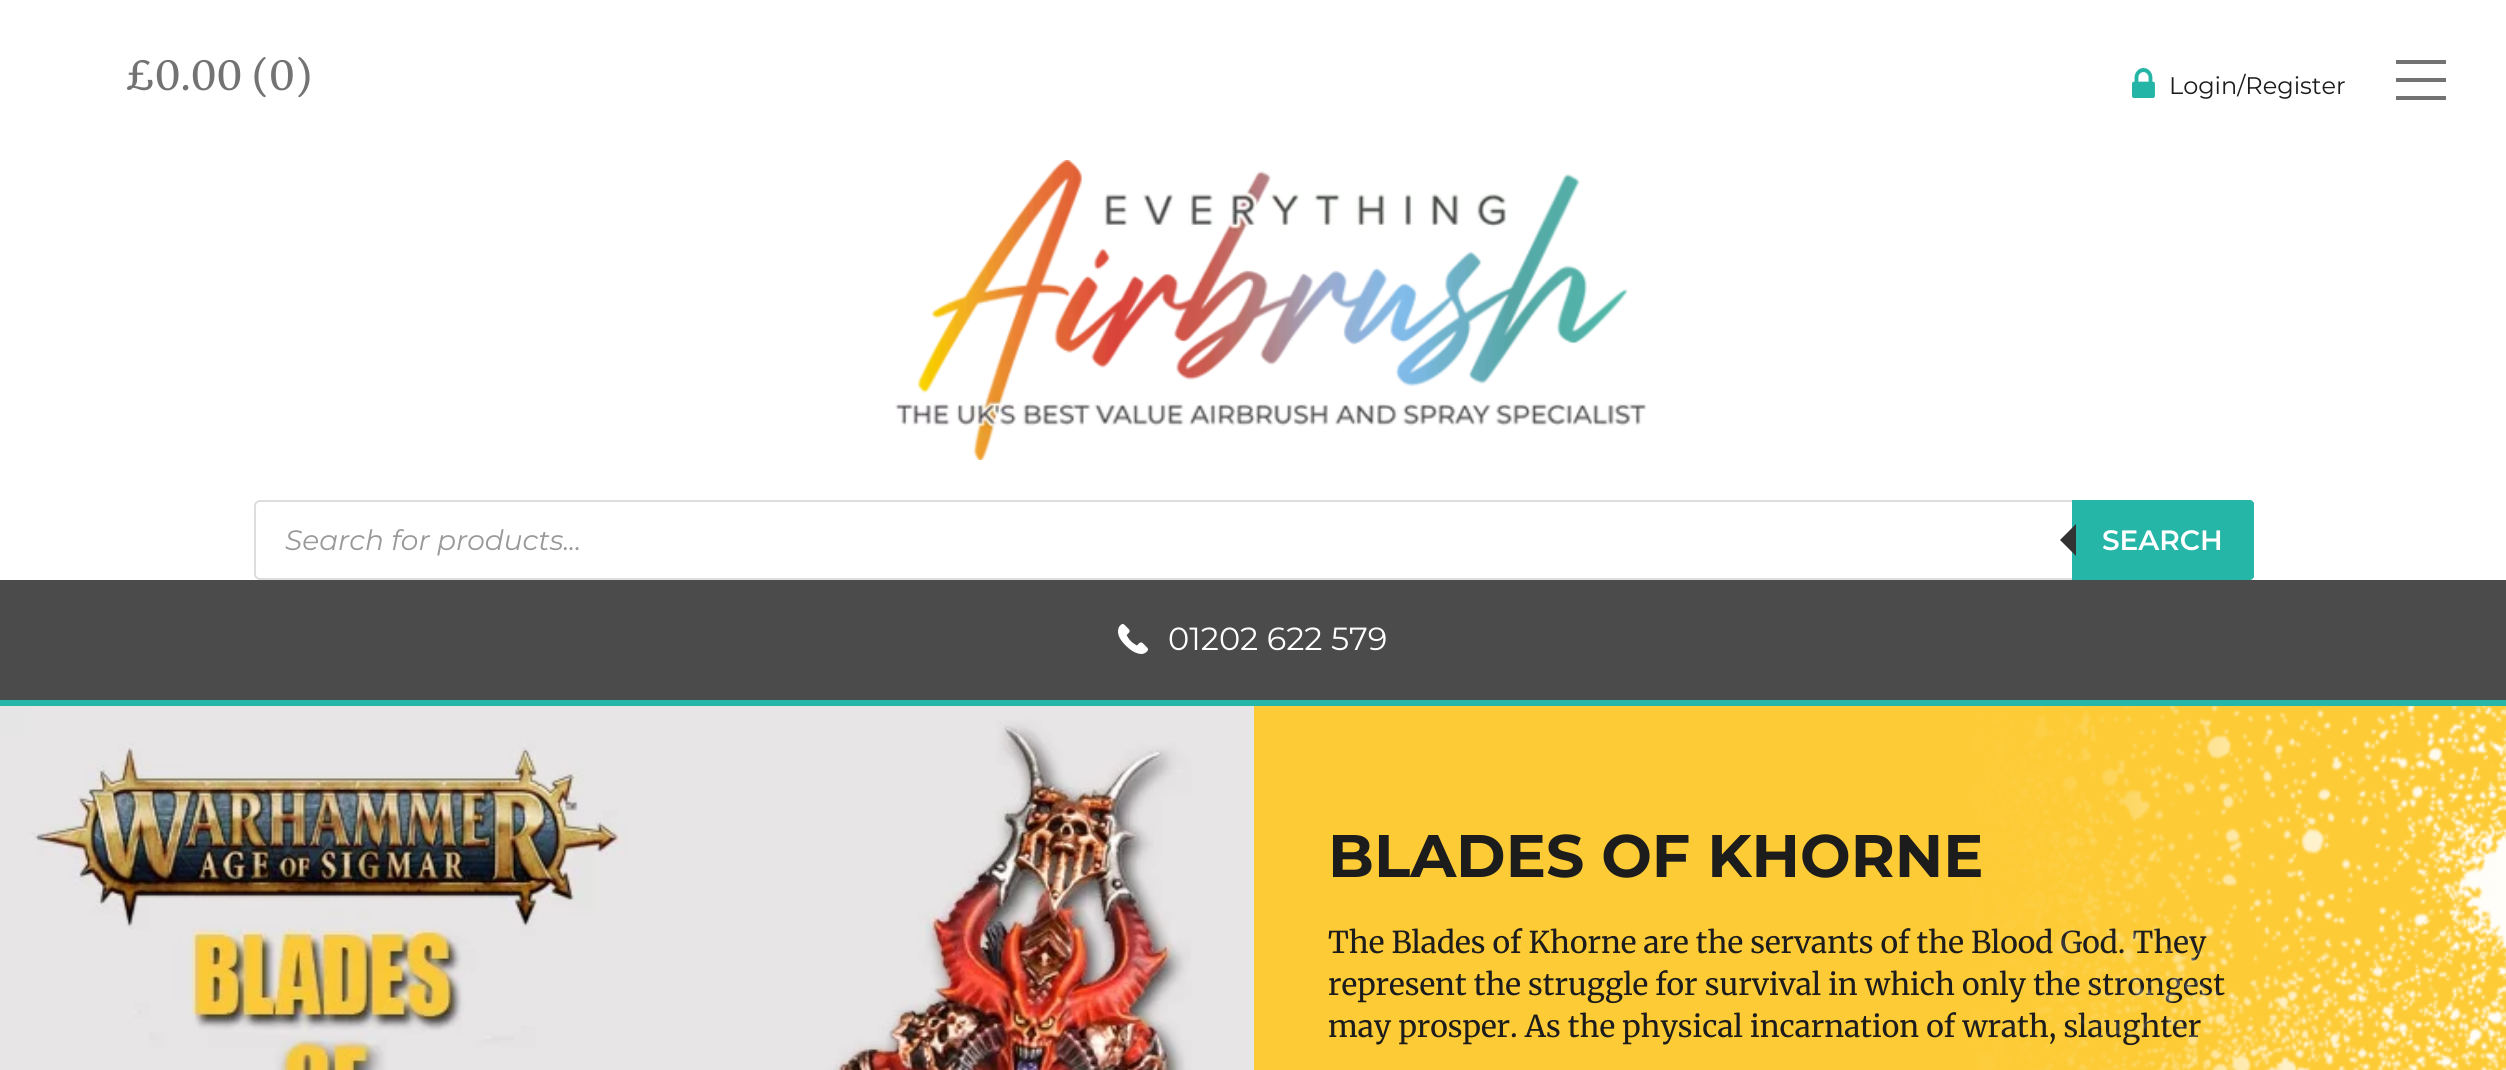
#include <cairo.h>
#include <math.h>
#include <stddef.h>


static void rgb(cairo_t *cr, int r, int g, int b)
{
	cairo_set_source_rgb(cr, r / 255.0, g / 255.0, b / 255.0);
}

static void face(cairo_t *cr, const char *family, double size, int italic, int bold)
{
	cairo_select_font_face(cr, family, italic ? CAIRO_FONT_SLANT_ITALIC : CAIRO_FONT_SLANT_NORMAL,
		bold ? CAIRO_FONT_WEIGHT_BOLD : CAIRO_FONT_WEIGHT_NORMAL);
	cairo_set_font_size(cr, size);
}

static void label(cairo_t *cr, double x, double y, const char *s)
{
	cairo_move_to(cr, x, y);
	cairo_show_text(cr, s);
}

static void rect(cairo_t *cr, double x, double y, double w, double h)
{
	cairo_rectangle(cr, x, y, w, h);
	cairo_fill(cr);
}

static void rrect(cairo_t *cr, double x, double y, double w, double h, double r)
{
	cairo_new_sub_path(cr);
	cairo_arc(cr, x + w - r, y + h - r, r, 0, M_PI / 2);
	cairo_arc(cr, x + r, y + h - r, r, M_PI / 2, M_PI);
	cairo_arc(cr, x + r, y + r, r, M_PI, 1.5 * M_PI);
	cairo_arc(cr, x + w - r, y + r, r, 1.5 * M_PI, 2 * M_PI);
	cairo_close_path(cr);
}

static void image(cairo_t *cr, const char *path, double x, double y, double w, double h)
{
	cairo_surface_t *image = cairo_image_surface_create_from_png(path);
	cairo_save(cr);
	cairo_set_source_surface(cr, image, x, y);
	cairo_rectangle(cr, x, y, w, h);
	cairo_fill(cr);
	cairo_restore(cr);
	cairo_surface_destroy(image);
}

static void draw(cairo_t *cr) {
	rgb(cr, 255, 255, 255);
	cairo_paint(cr);
	face(cr, "Merriweather Light", 40, 0, 0);
	rgb(cr, 115, 115, 115);
	label(cr, 125, 90, "£0.00 (0)");
	image(cr, "image0.png", 895, 160, 752, 300);
	rrect(cr, 255, 501, 1998, 78, 5);
	rgb(cr, 221, 221, 221);
	cairo_stroke(cr);
	face(cr, "Montserrat Thin", 28, 1, 0);
	rgb(cr, 153, 153, 153);
	label(cr, 285, 550, "Search for products...");
	rgb(cr, 37, 182, 167);
	cairo_new_path(cr);
	cairo_move_to(cr, 2072, 500);
	cairo_line_to(cr, 2250, 500);
	cairo_curve_to(cr, 2252, 500, 2254, 502, 2254, 504);
	cairo_line_to(cr, 2254, 576);
	cairo_curve_to(cr, 2254, 578, 2252, 580, 2250, 580);
	cairo_line_to(cr, 2072, 580);
	cairo_close_path(cr);
	cairo_fill(cr);
	rgb(cr, 51, 51, 51);
	cairo_new_path(cr);
	cairo_move_to(cr, 2076, 524);
	cairo_line_to(cr, 2076, 556);
	cairo_line_to(cr, 2060, 540);
	cairo_close_path(cr);
	cairo_fill(cr);
	face(cr, "Montserrat SemiBold", 28, 0, 0);
	rgb(cr, 255, 255, 255);
	label(cr, 2102, 550, "SEARCH");
	rgb(cr, 75, 75, 75);
	rect(cr, 0, 580, 2506, 120);
	rgb(cr, 37, 182, 167);
	rect(cr, 0, 700, 2506, 6);
	image(cr, "image1.png", 1118, 624, 30, 30);
	face(cr, "Montserrat", 32, 0, 0);
	rgb(cr, 255, 255, 255);
	label(cr, 1168, 650, "01202 622 579");
	image(cr, "image2.png", 2132, 68, 23, 30);
	face(cr, "Montserrat", 24, 0, 0);
	rgb(cr, 28, 28, 28);
	label(cr, 2169, 94, "Login/Register");
	rgb(cr, 115, 115, 115);
	rect(cr, 2396, 60, 50, 4);
	rect(cr, 2396, 78, 50, 4);
	rect(cr, 2396, 96, 50, 4);
	image(cr, "image3.png", 0, 706, 1254, 364);
	rgb(cr, 253, 203, 53);
	rect(cr, 1254, 706, 1252, 364);
	face(cr, "Montserrat", 60, 0, 1);
	rgb(cr, 28, 28, 28);
	label(cr, 1328, 877, "BLADES OF KHORNE");
	face(cr, "Merriweather Light", 30, 0, 0);
	label(cr, 1328, 953, "The Blades of Khorne are the servants of the Blood God. They");
	label(cr, 1328, 995, "represent the struggle for survival in which only the strongest");
	label(cr, 1328, 1037, "may prosper. As the physical incarnation of wrath, slaughter");
	image(cr, "image4.png", 1971, 706, 535, 364);
}

int main(void) {
	cairo_surface_t *surface = cairo_image_surface_create(CAIRO_FORMAT_RGB24, 2506, 1070);
	cairo_t *cr = cairo_create(surface);
	cairo_font_options_t *options = cairo_font_options_create();
	cairo_font_options_set_hint_metrics(options, CAIRO_HINT_METRICS_OFF);
	cairo_font_options_set_hint_style(options, CAIRO_HINT_STYLE_NONE);
	cairo_set_font_options(cr, options);
	cairo_set_miter_limit(cr, 4);
	draw(cr);
	cairo_surface_write_to_png(surface, "render.png");
	cairo_font_options_destroy(options);
	cairo_destroy(cr);
	cairo_surface_destroy(surface);
	return 0;
}
